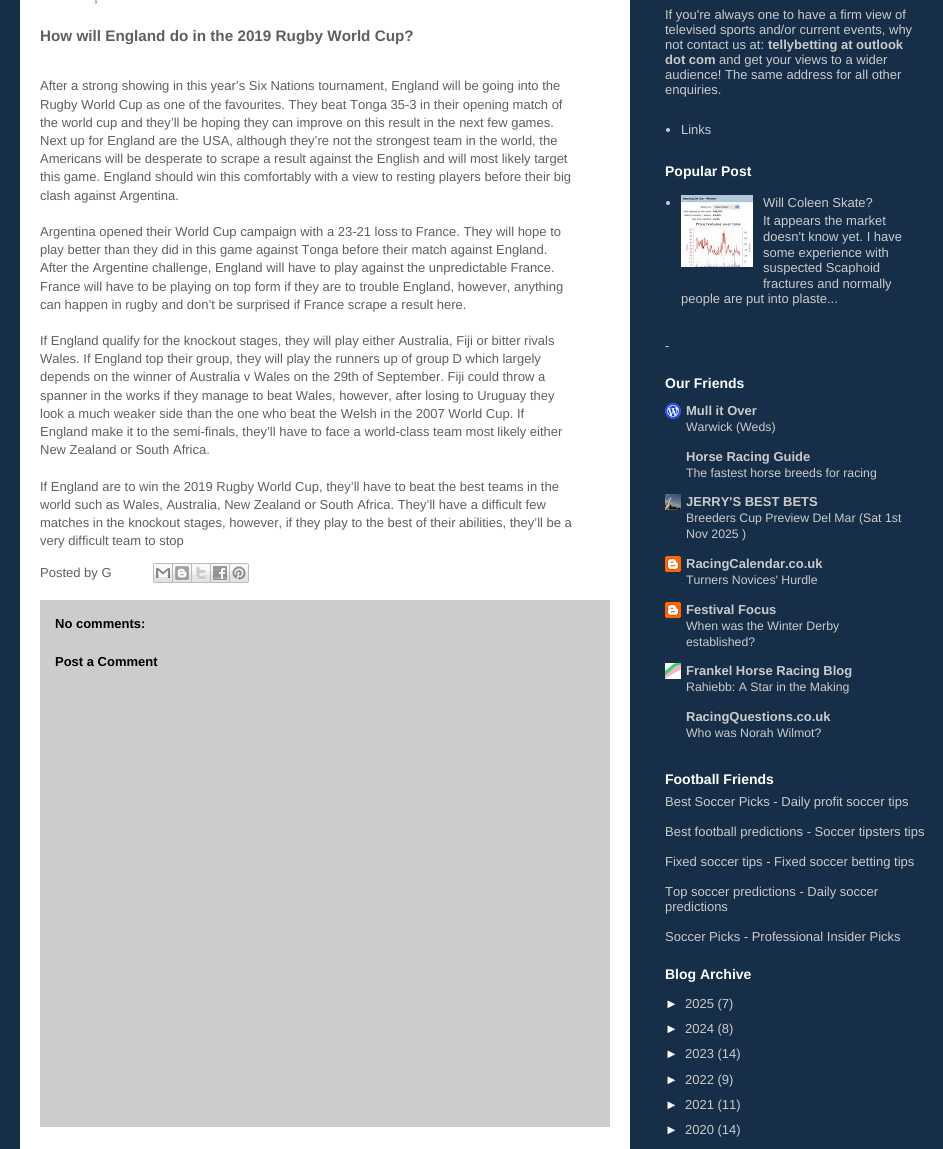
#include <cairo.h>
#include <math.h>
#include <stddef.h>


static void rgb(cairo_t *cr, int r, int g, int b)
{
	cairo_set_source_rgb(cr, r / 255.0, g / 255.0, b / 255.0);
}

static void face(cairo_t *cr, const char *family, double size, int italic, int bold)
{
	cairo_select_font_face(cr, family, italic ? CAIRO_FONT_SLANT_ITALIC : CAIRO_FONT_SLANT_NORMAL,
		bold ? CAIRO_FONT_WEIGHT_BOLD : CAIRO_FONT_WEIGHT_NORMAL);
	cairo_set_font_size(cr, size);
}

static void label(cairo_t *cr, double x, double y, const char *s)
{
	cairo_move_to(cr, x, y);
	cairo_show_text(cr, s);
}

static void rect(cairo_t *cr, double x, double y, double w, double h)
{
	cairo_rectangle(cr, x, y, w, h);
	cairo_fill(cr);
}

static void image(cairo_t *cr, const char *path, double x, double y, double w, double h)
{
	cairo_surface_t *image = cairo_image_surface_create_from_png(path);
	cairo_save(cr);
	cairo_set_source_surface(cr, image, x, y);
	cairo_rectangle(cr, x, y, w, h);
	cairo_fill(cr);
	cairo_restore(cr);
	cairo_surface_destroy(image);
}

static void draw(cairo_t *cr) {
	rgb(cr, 22, 46, 72);
	cairo_paint(cr);
	rgb(cr, 255, 255, 255);
	rect(cr, 20, 0, 610, 1149);
	face(cr, "Liberation Sans", 14, 0, 0);
	rgb(cr, 95, 95, 95);
	label(cr, 94, 2, ",");
	face(cr, "Liberation Sans", 15.25, 0, 1);
	label(cr, 40, 41, "How will England do in the 2019 Rugby World Cup?");
	face(cr, "Liberation Sans", 13, 0, 0);
	label(cr, 40, 90, "After a strong showing in this year’s Six Nations tournament, England will be going into the");
	label(cr, 40, 109, "Rugby World Cup as one of the favourites. They beat Tonga 35-3 in their opening match of");
	label(cr, 40, 127, "the world cup and they’ll be hoping they can improve on this result in the next few games.");
	label(cr, 40, 145, "Next up for England are the USA, although they’re not the strongest team in the world, the");
	label(cr, 40, 163, "Americans will be desperate to scrape a result against the English and will most likely target");
	label(cr, 40, 181, "this game. England should win this comfortably with a view to resting players before their big");
	label(cr, 40, 200, "clash against Argentina.");
	label(cr, 40, 236, "Argentina opened their World Cup campaign with a 23-21 loss to France. They will hope to");
	label(cr, 40, 254, "play better than they did in this game against Tonga before their match against England.");
	label(cr, 40, 272, "After the Argentine challenge, England will have to play against the unpredictable France.");
	label(cr, 40, 291, "France will have to be playing on top form if they are to trouble England, however, anything");
	label(cr, 40, 309, "can happen in rugby and don’t be surprised if France scrape a result here.");
	label(cr, 40, 345, "If England qualify for the knockout stages, they will play either Australia, Fiji or bitter rivals");
	label(cr, 40, 363, "Wales. If England top their group, they will play the runners up of group D which largely");
	label(cr, 40, 381, "depends on the winner of Australia v Wales on the 29th of September. Fiji could throw a");
	label(cr, 40, 400, "spanner in the works if they manage to beat Wales, however, after losing to Uruguay they");
	label(cr, 40, 418, "look a much weaker side than the one who beat the Welsh in the 2007 World Cup. If");
	label(cr, 40, 436, "England make it to the semi-finals, they’ll have to face a world-class team most likely either");
	label(cr, 40, 454, "New Zealand or South Africa.");
	label(cr, 40, 491, "If England are to win the 2019 Rugby World Cup, they’ll have to beat the best teams in the");
	label(cr, 40, 509, "world such as Wales, Australia, New Zealand or South Africa. They’ll have a difficult few");
	label(cr, 40, 527, "matches in the knockout stages, however, if they play to the best of their abilities, they’ll be a");
	label(cr, 40, 545, "very difficult team to stop");
	label(cr, 40, 577, "Posted by G");
	image(cr, "image0.png", 153, 563, 20, 20);
	image(cr, "image1.png", 173, 563, 19, 20);
	image(cr, "image2.png", 192, 563, 19, 20);
	image(cr, "image3.png", 211, 563, 19, 20);
	image(cr, "image4.png", 230, 563, 19, 20);
	rgb(cr, 204, 204, 204);
	rect(cr, 40, 600, 570, 527);
	face(cr, "Liberation Sans", 13, 0, 1);
	rgb(cr, 0, 0, 0);
	label(cr, 55, 628, "No comments:");
	label(cr, 55, 666, "Post a Comment");
	face(cr, "Liberation Sans", 13, 0, 0);
	rgb(cr, 202, 202, 202);
	label(cr, 665, 19, "If you're always one to have a firm view of");
	label(cr, 665, 34, "televised sports and/or current events, why");
	label(cr, 665, 49, "not contact us at:");
	face(cr, "Liberation Sans", 13, 0, 1);
	label(cr, 768, 49, "tellybetting at outlook");
	label(cr, 665, 64, "dot com");
	face(cr, "Liberation Sans", 13, 0, 0);
	label(cr, 719, 64, "and get your views to a wider");
	label(cr, 665, 79, "audience! The same address for all other");
	label(cr, 665, 94, "enquiries.");
	cairo_new_path(cr);
	cairo_arc(cr, 668, 130, 2, 0, 2 * M_PI);
	cairo_fill(cr);
	label(cr, 681, 134, "Links");
	face(cr, "Liberation Sans", 14, 0, 1);
	rgb(cr, 255, 255, 255);
	label(cr, 665, 176, "Popular Post");
	rgb(cr, 202, 202, 202);
	cairo_new_path(cr);
	cairo_arc(cr, 668, 203, 2, 0, 2 * M_PI);
	cairo_fill(cr);
	image(cr, "image5.png", 681, 195, 72, 72);
	face(cr, "Liberation Sans", 13, 0, 0);
	label(cr, 763, 207, "Will Coleen Skate?");
	label(cr, 763, 225, "It appears the market");
	label(cr, 763, 241, "doesn't know yet. I have");
	label(cr, 763, 257, "some experience with");
	label(cr, 763, 272, "suspected Scaphoid");
	label(cr, 763, 288, "fractures and normally");
	label(cr, 681, 303, "people are put into plaste...");
	label(cr, 665, 350, "-");
	face(cr, "Liberation Sans", 14, 0, 1);
	rgb(cr, 255, 255, 255);
	label(cr, 665, 388, "Our Friends");
	image(cr, "image6.png", 665, 403, 16, 16);
	face(cr, "Liberation Sans", 13, 0, 1);
	rgb(cr, 202, 202, 202);
	label(cr, 686, 415, "Mull it Over");
	face(cr, "Liberation Sans", 12.3, 0, 0);
	label(cr, 686, 431, "Warwick (Weds)");
	face(cr, "Liberation Sans", 13, 0, 1);
	label(cr, 686, 461, "Horse Racing Guide");
	face(cr, "Liberation Sans", 12.3, 0, 0);
	label(cr, 686, 477, "The fastest horse breeds for racing");
	image(cr, "image7.png", 665, 494, 16, 16);
	face(cr, "Liberation Sans", 13, 0, 1);
	label(cr, 686, 506, "JERRY'S BEST BETS");
	face(cr, "Liberation Sans", 12.3, 0, 0);
	label(cr, 686, 522, "Breeders Cup Preview Del Mar (Sat 1st");
	label(cr, 686, 538, "Nov 2025 )");
	image(cr, "image8.png", 665, 556, 16, 16);
	face(cr, "Liberation Sans", 13, 0, 1);
	label(cr, 686, 568, "RacingCalendar.co.uk");
	face(cr, "Liberation Sans", 12.3, 0, 0);
	label(cr, 686, 584, "Turners Novices' Hurdle");
	image(cr, "image8.png", 665, 602, 16, 16);
	face(cr, "Liberation Sans", 13, 0, 1);
	label(cr, 686, 614, "Festival Focus");
	face(cr, "Liberation Sans", 12.3, 0, 0);
	label(cr, 686, 630, "When was the Winter Derby");
	label(cr, 686, 646, "established?");
	image(cr, "image9.png", 665, 663, 16, 16);
	face(cr, "Liberation Sans", 13, 0, 1);
	label(cr, 686, 675, "Frankel Horse Racing Blog");
	face(cr, "Liberation Sans", 12.3, 0, 0);
	label(cr, 686, 691, "Rahiebb: A Star in the Making");
	face(cr, "Liberation Sans", 13, 0, 1);
	label(cr, 686, 721, "RacingQuestions.co.uk");
	face(cr, "Liberation Sans", 12.3, 0, 0);
	label(cr, 686, 737, "Who was Norah Wilmot?");
	face(cr, "Liberation Sans", 14, 0, 1);
	rgb(cr, 255, 255, 255);
	label(cr, 665, 784, "Football Friends");
	face(cr, "Liberation Sans", 13, 0, 0);
	rgb(cr, 202, 202, 202);
	label(cr, 665, 806, "Best Soccer Picks - Daily profit soccer tips");
	label(cr, 665, 836, "Best football predictions - Soccer tipsters tips");
	label(cr, 665, 866, "Fixed soccer tips - Fixed soccer betting tips");
	label(cr, 665, 896, "Top soccer predictions - Daily soccer");
	label(cr, 665, 911, "predictions");
	label(cr, 665, 941, "Soccer Picks - Professional Insider Picks");
	face(cr, "Liberation Sans", 14, 0, 1);
	rgb(cr, 255, 255, 255);
	label(cr, 665, 979, "Blog Archive");
	face(cr, "Liberation Sans", 13, 0, 0);
	label(cr, 665, 1008, "►");
	rgb(cr, 202, 202, 202);
	label(cr, 685, 1008, "2025 (7)");
	rgb(cr, 255, 255, 255);
	label(cr, 665, 1033, "►");
	rgb(cr, 202, 202, 202);
	label(cr, 685, 1033, "2024 (8)");
	rgb(cr, 255, 255, 255);
	label(cr, 665, 1058, "►");
	rgb(cr, 202, 202, 202);
	label(cr, 685, 1058, "2023 (14)");
	rgb(cr, 255, 255, 255);
	label(cr, 665, 1084, "►");
	rgb(cr, 202, 202, 202);
	label(cr, 685, 1084, "2022 (9)");
	rgb(cr, 255, 255, 255);
	label(cr, 665, 1109, "►");
	rgb(cr, 202, 202, 202);
	label(cr, 685, 1109, "2021 (11)");
	rgb(cr, 255, 255, 255);
	label(cr, 665, 1134, "►");
	rgb(cr, 202, 202, 202);
	label(cr, 685, 1134, "2020 (14)");
}

int main(void) {
	cairo_surface_t *surface = cairo_image_surface_create(CAIRO_FORMAT_RGB24, 943, 1149);
	cairo_t *cr = cairo_create(surface);
	cairo_font_options_t *options = cairo_font_options_create();
	cairo_font_options_set_hint_metrics(options, CAIRO_HINT_METRICS_OFF);
	cairo_font_options_set_hint_style(options, CAIRO_HINT_STYLE_NONE);
	cairo_set_font_options(cr, options);
	cairo_set_miter_limit(cr, 4);
	draw(cr);
	cairo_surface_write_to_png(surface, "render.png");
	cairo_font_options_destroy(options);
	cairo_destroy(cr);
	cairo_surface_destroy(surface);
	return 0;
}
